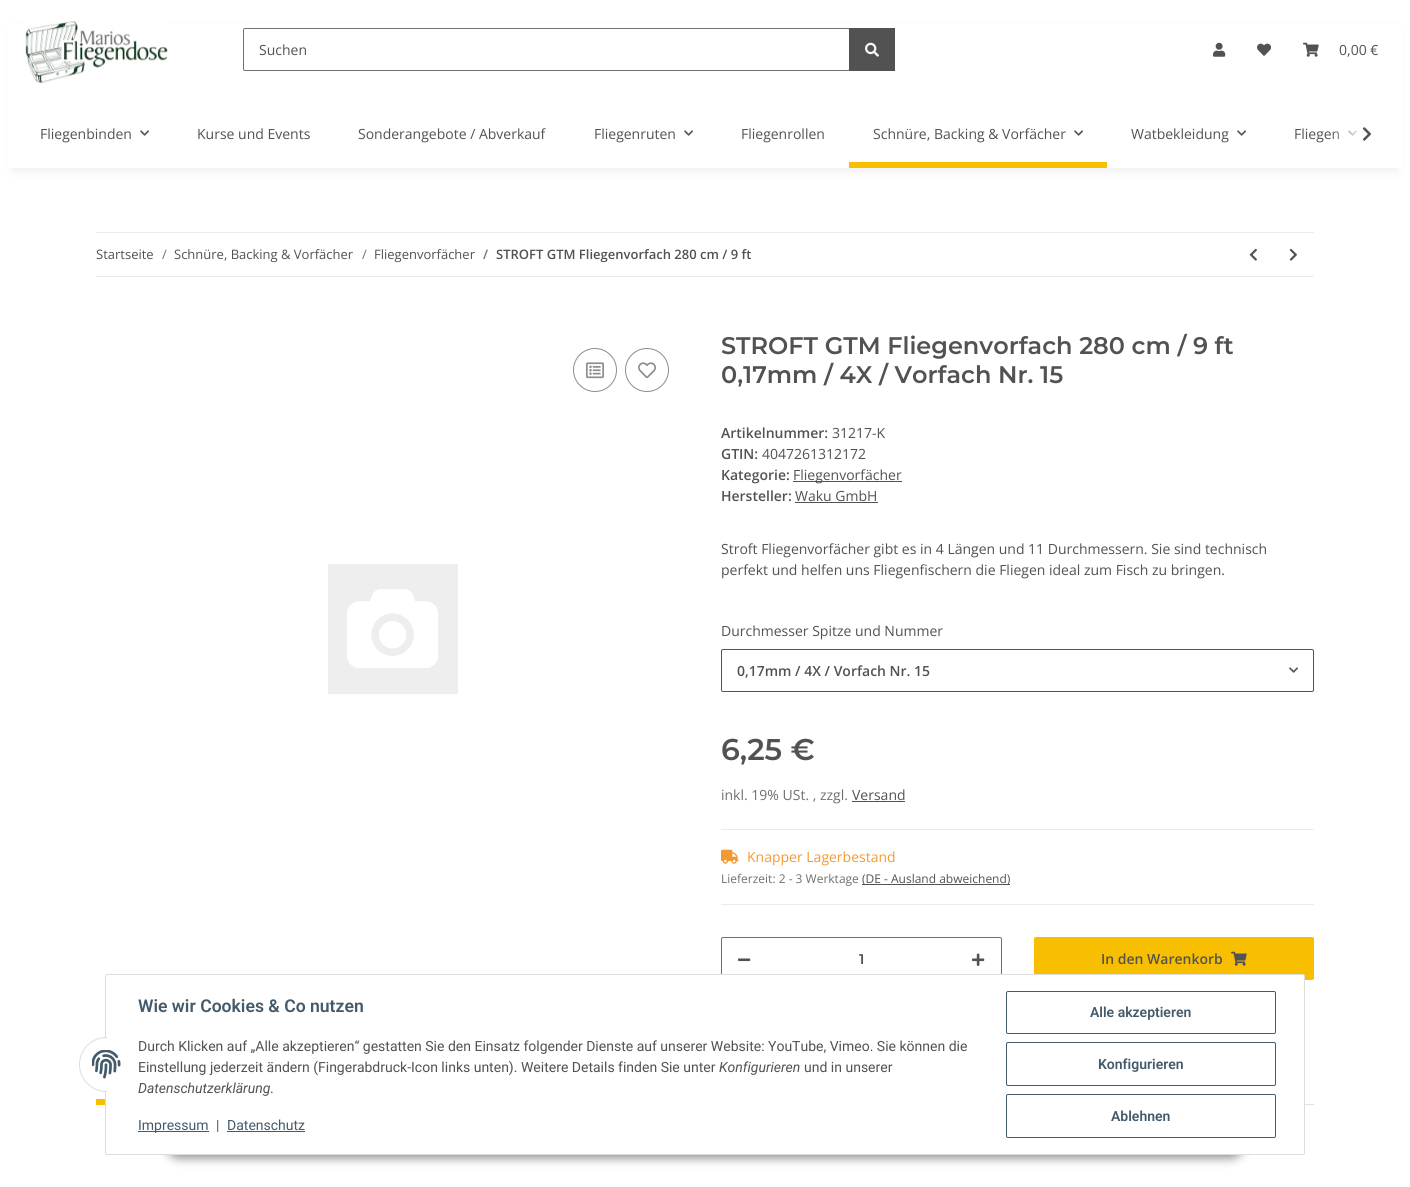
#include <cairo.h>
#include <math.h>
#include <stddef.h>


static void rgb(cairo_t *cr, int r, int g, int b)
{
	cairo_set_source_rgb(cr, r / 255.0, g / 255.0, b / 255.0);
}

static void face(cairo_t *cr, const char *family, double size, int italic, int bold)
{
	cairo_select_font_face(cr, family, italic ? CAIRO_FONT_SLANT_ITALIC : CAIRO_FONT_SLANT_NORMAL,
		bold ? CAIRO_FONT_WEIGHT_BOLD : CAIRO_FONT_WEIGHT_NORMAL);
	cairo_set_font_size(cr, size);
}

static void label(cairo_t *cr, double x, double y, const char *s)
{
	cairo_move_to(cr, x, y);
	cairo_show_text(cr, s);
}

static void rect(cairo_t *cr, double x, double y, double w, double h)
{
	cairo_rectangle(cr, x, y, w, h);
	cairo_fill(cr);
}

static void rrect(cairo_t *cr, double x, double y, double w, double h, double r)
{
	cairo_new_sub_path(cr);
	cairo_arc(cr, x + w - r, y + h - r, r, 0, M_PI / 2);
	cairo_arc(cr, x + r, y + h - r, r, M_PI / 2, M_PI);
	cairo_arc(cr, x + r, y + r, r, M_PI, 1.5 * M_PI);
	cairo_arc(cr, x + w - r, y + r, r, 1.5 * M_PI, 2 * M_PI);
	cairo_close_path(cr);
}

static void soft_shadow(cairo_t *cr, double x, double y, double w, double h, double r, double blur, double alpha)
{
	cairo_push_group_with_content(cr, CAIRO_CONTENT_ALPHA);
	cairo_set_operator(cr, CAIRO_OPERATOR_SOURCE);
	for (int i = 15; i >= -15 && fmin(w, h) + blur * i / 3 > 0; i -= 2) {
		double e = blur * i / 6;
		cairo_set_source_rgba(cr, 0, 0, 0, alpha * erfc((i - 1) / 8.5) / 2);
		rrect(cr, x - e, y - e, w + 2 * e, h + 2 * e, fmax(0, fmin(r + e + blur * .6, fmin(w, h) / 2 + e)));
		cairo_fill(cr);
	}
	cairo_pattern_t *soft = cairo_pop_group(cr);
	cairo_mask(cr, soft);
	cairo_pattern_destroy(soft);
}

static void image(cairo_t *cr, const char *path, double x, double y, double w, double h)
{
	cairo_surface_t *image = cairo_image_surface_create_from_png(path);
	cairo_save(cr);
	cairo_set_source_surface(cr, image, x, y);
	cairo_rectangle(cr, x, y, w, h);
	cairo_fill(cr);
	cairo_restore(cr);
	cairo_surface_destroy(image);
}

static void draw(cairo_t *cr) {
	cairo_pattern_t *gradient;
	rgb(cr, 255, 255, 255);
	cairo_paint(cr);
	rgb(cr, 0, 0, 0);
	soft_shadow(cr, 12, 28, 1386, 144, 0, 4.5, 0.06);
	rgb(cr, 255, 255, 255);
	rect(cr, 8, 24, 1394, 144);
	image(cr, "image0.png", 25, 21, 143, 63);
	rrect(cr, 243.5, 28.5, 606, 42, 1.5);
	rgb(cr, 112, 112, 112);
	cairo_set_line_width(cr, 1);
	cairo_stroke(cr);
	face(cr, "Open Sans", 14, 0, 0);
	rgb(cr, 82, 82, 82);
	label(cr, 259, 55, "Suchen");
	rect(cr, 849, 28, 46, 43);
	image(cr, "image1.png", 865, 42, 14, 15);
	image(cr, "image2.png", 1213, 42, 13, 15);
	image(cr, "image3.png", 1257, 43, 14, 13);
	image(cr, "image4.png", 1303, 42, 16, 15);
	label(cr, 1339, 55, "0,00 €");
	label(cr, 40, 139, "Fliegenbinden");
	image(cr, "image5.png", 140, 130, 9, 6);
	label(cr, 197, 139, "Kurse und Events");
	label(cr, 358, 139, "Sonderangebote / Abverkauf");
	label(cr, 594, 139, "Fliegenruten");
	image(cr, "image5.png", 684, 130, 9, 6);
	label(cr, 741, 139, "Fliegenrollen");
	label(cr, 873, 139, "Schnüre, Backing & Vorfächer");
	image(cr, "image5.png", 1074, 130, 9, 6);
	rgb(cr, 248, 191, 0);
	rect(cr, 849, 162, 258, 6);
	rgb(cr, 82, 82, 82);
	label(cr, 1131, 139, "Watbekleidung");
	image(cr, "image5.png", 1237, 130, 9, 6);
	label(cr, 1294, 139, "Fliegen");
	image(cr, "image5.png", 1348, 130, 9, 6);
	gradient = cairo_pattern_create_linear(1330, 134, 1378, 134);
	cairo_pattern_add_color_stop_rgba(gradient, 0, 1, 1, 1, 0.01);
	cairo_pattern_add_color_stop_rgba(gradient, 0.7, 1, 1, 1, 1);
	cairo_set_source(cr, gradient);
	cairo_pattern_destroy(gradient);
	rect(cr, 1330, 130, 27, 9);
	image(cr, "image6.png", 1362, 127, 10, 14);
	rgb(cr, 235, 235, 235);
	rect(cr, 96, 232, 1218, 1);
	rect(cr, 96, 276, 1218, 1);
	face(cr, "Open Sans", 13, 0, 0);
	rgb(cr, 82, 82, 82);
	label(cr, 96, 259, "Startseite");
	rgb(cr, 112, 112, 112);
	label(cr, 162, 259, "/");
	rgb(cr, 82, 82, 82);
	label(cr, 174, 259, "Schnüre, Backing & Vorfächer");
	rgb(cr, 112, 112, 112);
	label(cr, 362, 259, "/");
	rgb(cr, 82, 82, 82);
	label(cr, 374, 259, "Fliegenvorfächer");
	face(cr, "Open Sans SemiBold", 13, 0, 0);
	rgb(cr, 112, 112, 112);
	label(cr, 483, 259, "/");
	rgb(cr, 82, 82, 82);
	label(cr, 496, 259, "STROFT GTM Fliegenvorfach 280 cm / 9 ft");
	image(cr, "image7.png", 1249, 248, 8, 13);
	image(cr, "image8.png", 1289, 248, 8, 13);
	cairo_arc(cr, 595, 370, 21.5, 0, 2 * M_PI);
	rgb(cr, 141, 141, 141);
	cairo_stroke(cr);
	image(cr, "image9.png", 586, 362, 18, 17);
	cairo_arc(cr, 647, 370, 21.5, 0, 2 * M_PI);
	cairo_stroke(cr);
	image(cr, "image10.png", 638, 362, 18, 17);
	image(cr, "image11.png", 328, 564, 130, 130);
	face(cr, "Montserrat SemiBold", 24, 0, 0);
	rgb(cr, 82, 82, 82);
	label(cr, 721, 354, "STROFT GTM Fliegenvorfach 280 cm / 9 ft");
	label(cr, 721, 383, "0,17mm / 4X / Vorfach Nr. 15");
	face(cr, "Open Sans SemiBold", 14, 0, 0);
	label(cr, 721, 438, "Artikelnummer:");
	face(cr, "Open Sans", 14, 0, 0);
	label(cr, 832, 438, "31217-K");
	face(cr, "Open Sans SemiBold", 14, 0, 0);
	label(cr, 721, 459, "GTIN:");
	face(cr, "Open Sans", 14, 0, 0);
	label(cr, 762, 459, "4047261312172");
	face(cr, "Open Sans SemiBold", 14, 0, 0);
	label(cr, 721, 480, "Kategorie:");
	rect(cr, 793, 481, 109, 1);
	face(cr, "Open Sans", 14, 0, 0);
	label(cr, 793, 480, "Fliegenvorfächer");
	face(cr, "Open Sans SemiBold", 14, 0, 0);
	label(cr, 721, 501, "Hersteller:");
	face(cr, "Open Sans", 14, 0, 0);
	label(cr, 795, 501, "Waku GmbH");
	rect(cr, 795, 502, 83, 1);
	label(cr, 721, 554, "Stroft Fliegenvorfächer gibt es in 4 Längen und 11 Durchmessern. Sie sind technisch");
	label(cr, 721, 575, "perfekt und helfen uns Fliegenfischern die Fliegen ideal zum Fisch zu bringen.");
	label(cr, 721, 636, "Durchmesser Spitze und Nummer");
	rrect(cr, 721.5, 649.5, 592, 42, 1.5);
	cairo_stroke(cr);
	face(cr, "Open Sans SemiBold", 14, 0, 0);
	label(cr, 737, 676, "0,17mm / 4X / Vorfach Nr. 15");
	image(cr, "image5.png", 1289, 667, 9, 6);
	face(cr, "Montserrat SemiBold", 30, 0, 0);
	label(cr, 721, 760, "6,25 €");
	face(cr, "Open Sans", 14, 0, 0);
	rgb(cr, 112, 112, 112);
	label(cr, 721, 800, "inkl. 19% USt. , zzgl.");
	rgb(cr, 82, 82, 82);
	label(cr, 852, 800, "Versand");
	rect(cr, 852, 801, 53, 1);
	rgb(cr, 235, 235, 235);
	rect(cr, 721, 829, 593, 1);
	rect(cr, 721, 904, 593, 1);
	image(cr, "image12.png", 721, 849, 18, 15);
	rgb(cr, 243, 153, 50);
	label(cr, 747, 862, "Knapper Lagerbestand");
	face(cr, "Open Sans", 12, 0, 0);
	rgb(cr, 112, 112, 112);
	label(cr, 721, 883, "Lieferzeit: 2 - 3 Werktage");
	rgb(cr, 82, 82, 82);
	rect(cr, 862, 884, 148, 1);
	label(cr, 862, 883, "(DE - Ausland abweichend)");
	rrect(cr, 721.5, 937.5, 280, 42, 1.5);
	rgb(cr, 112, 112, 112);
	cairo_stroke(cr);
	image(cr, "image13.png", 738, 958, 13, 4);
	face(cr, "Montserrat SemiBold", 14, 0, 0);
	rgb(cr, 82, 82, 82);
	label(cr, 859, 964, "1");
	image(cr, "image14.png", 972, 953, 13, 13);
	rgb(cr, 248, 191, 0);
	rrect(cr, 1034.5, 937.5, 279, 42, 1.5);
	cairo_fill_preserve(cr);
	cairo_stroke(cr);
	face(cr, "Open Sans SemiBold", 14, 0, 0);
	rgb(cr, 82, 82, 82);
	label(cr, 1101, 964, "In den Warenkorb");
	image(cr, "image15.png", 1231, 951, 16, 15);
	rgb(cr, 222, 226, 230);
	rect(cr, 1305, 1104, 9, 1);
	rgb(cr, 248, 191, 0);
	rect(cr, 96, 1099, 9, 6);
	rgb(cr, 0, 0, 0);
	soft_shadow(cr, 166, 1126, 1078, 32, 16, 5, 0.45);
	rgb(cr, 255, 255, 255);
	rrect(cr, 105.5, 974.5, 1199, 180, 1.5);
	cairo_fill_preserve(cr);
	rgb(cr, 221, 221, 221);
	cairo_stroke(cr);
	rgb(cr, 255, 255, 255);
	cairo_arc(cr, 106.5, 1064.5, 27, 0, 2 * M_PI);
	cairo_fill_preserve(cr);
	rgb(cr, 221, 221, 221);
	cairo_stroke(cr);
	rgb(cr, 255, 255, 255);
	rect(cr, 107, 1037, 27, 55);
	image(cr, "image16.png", 92, 1050, 29, 29);
	face(cr, "Roboto SemiBold", 17.6, 0, 0);
	rgb(cr, 67, 90, 107);
	label(cr, 138, 1012, "Wie wir Cookies & Co nutzen");
	face(cr, "Roboto", 14, 0, 0);
	rgb(cr, 82, 82, 82);
	label(cr, 138, 1051, "Durch Klicken auf „Alle akzeptieren“ gestatten Sie den Einsatz folgender Dienste auf unserer Website: YouTube, Vimeo. Sie können die");
	label(cr, 138, 1072, "Einstellung jederzeit ändern (Fingerabdruck-Icon links unten). Weitere Details finden Sie unter");
	face(cr, "Roboto", 14, 1, 0);
	label(cr, 719, 1072, "Konfigurieren");
	face(cr, "Roboto", 14, 0, 0);
	label(cr, 804, 1072, "und in unserer");
	face(cr, "Roboto", 14, 1, 0);
	label(cr, 138, 1093, "Datenschutzerklärung");
	face(cr, "Roboto", 14, 0, 0);
	label(cr, 270, 1093, ".");
	rgb(cr, 67, 90, 107);
	rect(cr, 138, 1131, 71, 1);
	label(cr, 138, 1130, "Impressum");
	rgb(cr, 82, 82, 82);
	label(cr, 216, 1130, "|");
	rgb(cr, 67, 90, 107);
	label(cr, 227, 1130, "Datenschutz");
	rect(cr, 227, 1131, 78, 1);
	rrect(cr, 1006.5, 991.5, 269, 42, 1.5);
	cairo_stroke(cr);
	face(cr, "Roboto SemiBold", 14, 0, 0);
	label(cr, 1090, 1017, "Alle akzeptieren");
	rrect(cr, 1006.5, 1042.5, 269, 43, 1.5);
	cairo_stroke(cr);
	label(cr, 1098, 1069, "Konfigurieren");
	rrect(cr, 1006.5, 1094.5, 269, 43, 1.5);
	cairo_stroke(cr);
	label(cr, 1111, 1121, "Ablehnen");
}

int main(void) {
	cairo_surface_t *surface = cairo_image_surface_create(CAIRO_FORMAT_RGB24, 1410, 1187);
	cairo_t *cr = cairo_create(surface);
	cairo_font_options_t *options = cairo_font_options_create();
	cairo_font_options_set_hint_metrics(options, CAIRO_HINT_METRICS_OFF);
	cairo_font_options_set_hint_style(options, CAIRO_HINT_STYLE_NONE);
	cairo_set_font_options(cr, options);
	cairo_set_miter_limit(cr, 4);
	draw(cr);
	cairo_surface_write_to_png(surface, "render.png");
	cairo_font_options_destroy(options);
	cairo_destroy(cr);
	cairo_surface_destroy(surface);
	return 0;
}
